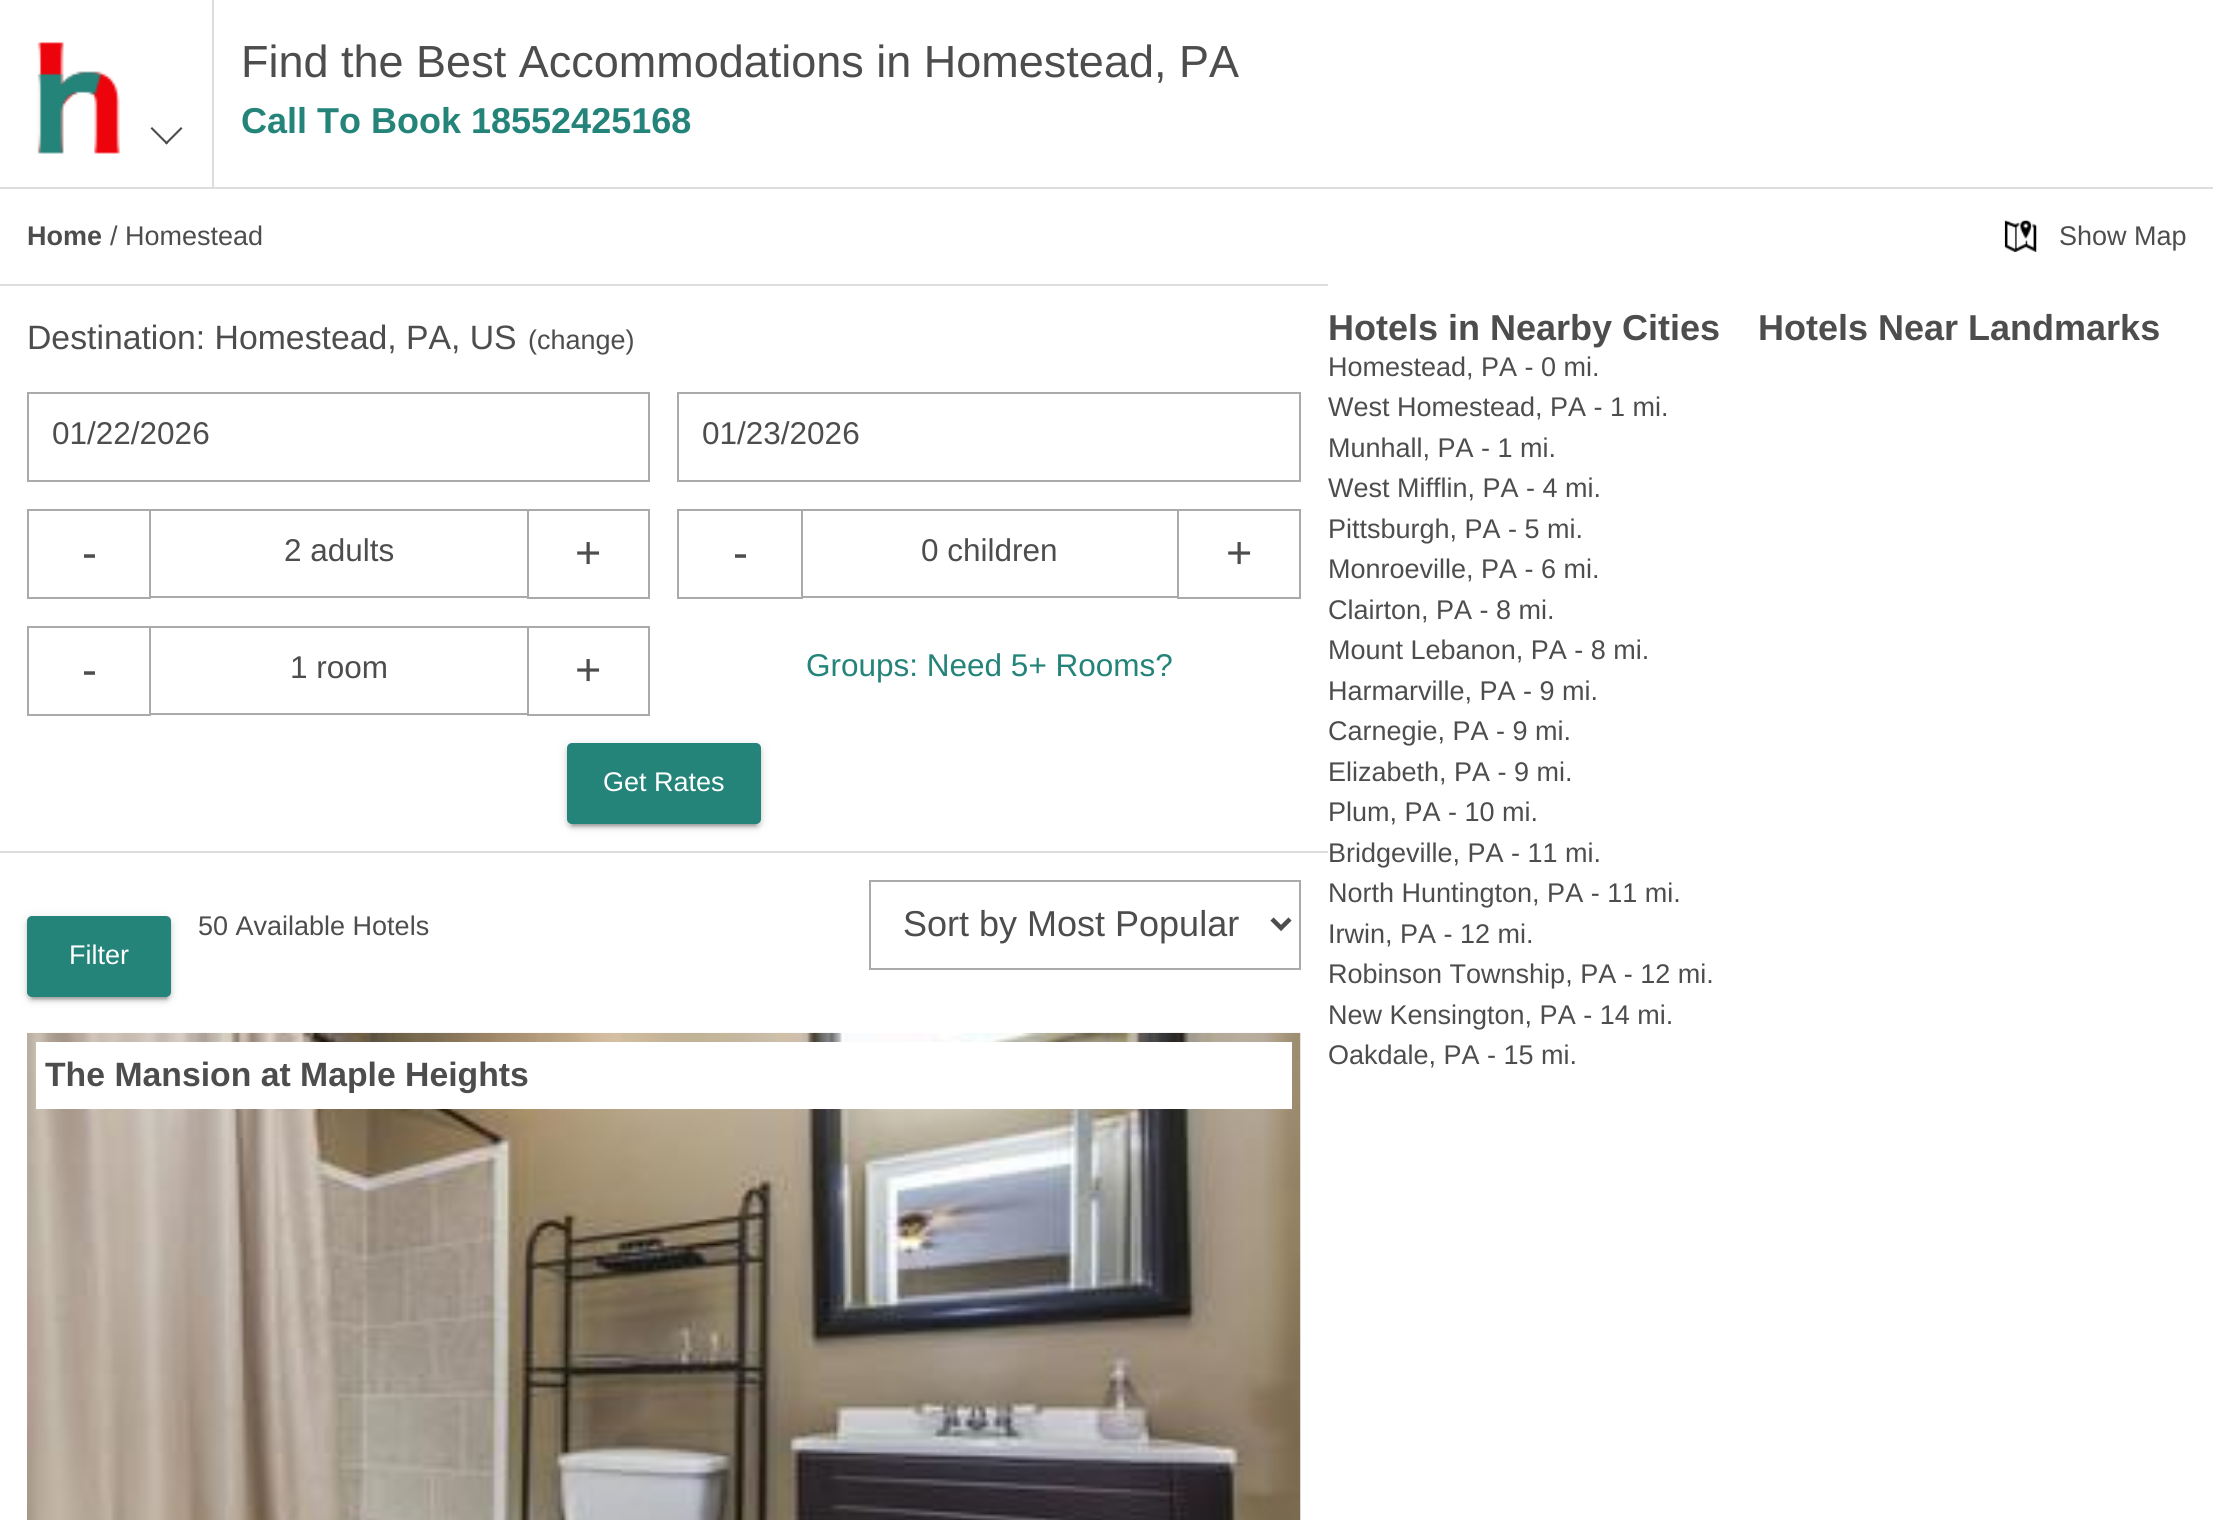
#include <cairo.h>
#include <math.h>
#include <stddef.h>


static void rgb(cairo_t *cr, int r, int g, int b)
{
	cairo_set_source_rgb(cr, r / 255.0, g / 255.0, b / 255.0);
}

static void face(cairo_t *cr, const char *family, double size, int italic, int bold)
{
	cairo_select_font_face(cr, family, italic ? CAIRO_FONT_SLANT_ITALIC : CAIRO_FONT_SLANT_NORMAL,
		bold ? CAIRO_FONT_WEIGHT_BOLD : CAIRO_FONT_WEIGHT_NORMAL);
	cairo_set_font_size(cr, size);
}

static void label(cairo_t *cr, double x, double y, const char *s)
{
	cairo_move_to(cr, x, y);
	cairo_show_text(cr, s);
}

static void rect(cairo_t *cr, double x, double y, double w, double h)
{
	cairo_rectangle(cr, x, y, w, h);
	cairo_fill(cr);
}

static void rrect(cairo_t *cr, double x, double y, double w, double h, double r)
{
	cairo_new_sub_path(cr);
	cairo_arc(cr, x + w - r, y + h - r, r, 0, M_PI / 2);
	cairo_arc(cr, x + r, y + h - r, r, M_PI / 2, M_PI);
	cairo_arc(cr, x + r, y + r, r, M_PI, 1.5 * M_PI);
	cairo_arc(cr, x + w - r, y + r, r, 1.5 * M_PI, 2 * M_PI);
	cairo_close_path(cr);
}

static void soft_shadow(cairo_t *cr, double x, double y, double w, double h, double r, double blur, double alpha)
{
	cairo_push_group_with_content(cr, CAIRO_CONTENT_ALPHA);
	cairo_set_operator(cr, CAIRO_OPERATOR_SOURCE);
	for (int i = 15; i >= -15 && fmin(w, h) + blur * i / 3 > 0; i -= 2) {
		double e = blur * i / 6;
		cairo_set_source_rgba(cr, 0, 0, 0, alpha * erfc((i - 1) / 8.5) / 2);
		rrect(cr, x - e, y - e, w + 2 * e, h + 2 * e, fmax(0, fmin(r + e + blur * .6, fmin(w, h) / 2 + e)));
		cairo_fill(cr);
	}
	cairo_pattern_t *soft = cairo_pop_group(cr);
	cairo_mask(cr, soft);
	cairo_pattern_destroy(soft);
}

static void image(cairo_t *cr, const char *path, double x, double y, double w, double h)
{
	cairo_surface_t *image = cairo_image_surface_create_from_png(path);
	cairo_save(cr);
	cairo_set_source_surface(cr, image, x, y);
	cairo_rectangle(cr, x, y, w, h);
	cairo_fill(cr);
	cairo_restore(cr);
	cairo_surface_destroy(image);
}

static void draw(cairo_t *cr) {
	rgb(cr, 255, 255, 255);
	cairo_paint(cr);
	rgb(cr, 221, 221, 221);
	rect(cr, 0, 187, 2213, 2);
	rect(cr, 212, 0, 2, 187);
	image(cr, "image0.png", 37, 42, 83, 112);
	rgb(cr, 77, 77, 77);
	cairo_new_path(cr);
	cairo_move_to(cr, 182.5, 128.5);
	cairo_line_to(cr, 166.5, 144.5);
	cairo_line_to(cr, 165, 143);
	cairo_line_to(cr, 181, 127);
	cairo_close_path(cr);
	cairo_fill(cr);
	cairo_new_path(cr);
	cairo_move_to(cr, 168, 143);
	cairo_line_to(cr, 166.5, 144.5);
	cairo_line_to(cr, 150.5, 128.5);
	cairo_line_to(cr, 152, 127);
	cairo_close_path(cr);
	cairo_fill(cr);
	face(cr, "Liberation Sans", 45, 0, 0);
	label(cr, 241, 77, "Find the Best Accommodations in Homestead, PA");
	face(cr, "Liberation Sans", 36, 0, 1);
	rgb(cr, 36, 132, 122);
	label(cr, 241, 133, "Call To Book 18552425168");
	rgb(cr, 221, 221, 221);
	rect(cr, 0, 284, 1328, 2);
	face(cr, "Liberation Sans", 27, 0, 1);
	rgb(cr, 77, 77, 77);
	label(cr, 27, 245, "Home");
	face(cr, "Liberation Sans", 27, 0, 0);
	label(cr, 110, 245, "/ Homestead");
	rgb(cr, 221, 221, 221);
	rect(cr, 0, 851, 1328, 2);
	face(cr, "Liberation Sans", 33.75, 0, 0);
	rgb(cr, 77, 77, 77);
	label(cr, 27, 349, "Destination: Homestead, PA, US");
	face(cr, "Liberation Sans", 27, 0, 0);
	label(cr, 528, 349, "(change)");
	cairo_rectangle(cr, 28, 393, 621, 88);
	rgb(cr, 170, 170, 170);
	cairo_stroke(cr);
	face(cr, "Liberation Sans", 31.5, 0, 0);
	rgb(cr, 77, 77, 77);
	label(cr, 52, 444, "01/22/2026");
	cairo_rectangle(cr, 678, 393, 622, 88);
	rgb(cr, 170, 170, 170);
	cairo_stroke(cr);
	rgb(cr, 77, 77, 77);
	label(cr, 702, 444, "01/23/2026");
	cairo_rectangle(cr, 28, 510, 122, 88);
	rgb(cr, 170, 170, 170);
	cairo_stroke(cr);
	face(cr, "Liberation Sans", 45, 0, 0);
	rgb(cr, 77, 77, 77);
	label(cr, 82, 568, "-");
	rgb(cr, 170, 170, 170);
	rect(cr, 151, 509, 376, 2);
	rect(cr, 151, 596, 376, 2);
	face(cr, "Liberation Sans", 31.5, 0, 0);
	rgb(cr, 77, 77, 77);
	label(cr, 284, 561, "2 adults");
	cairo_rectangle(cr, 528, 510, 121, 88);
	rgb(cr, 170, 170, 170);
	cairo_stroke(cr);
	face(cr, "Liberation Sans", 45, 0, 0);
	rgb(cr, 77, 77, 77);
	label(cr, 575, 568, "+");
	cairo_rectangle(cr, 678, 510, 124, 88);
	rgb(cr, 170, 170, 170);
	cairo_stroke(cr);
	rgb(cr, 77, 77, 77);
	label(cr, 733, 568, "-");
	rgb(cr, 170, 170, 170);
	rect(cr, 803, 509, 374, 2);
	rect(cr, 803, 596, 374, 2);
	face(cr, "Liberation Sans", 31.5, 0, 0);
	rgb(cr, 77, 77, 77);
	label(cr, 921, 561, "0 children");
	cairo_rectangle(cr, 1178, 510, 122, 88);
	rgb(cr, 170, 170, 170);
	cairo_stroke(cr);
	face(cr, "Liberation Sans", 45, 0, 0);
	rgb(cr, 77, 77, 77);
	label(cr, 1226, 568, "+");
	cairo_rectangle(cr, 28, 627, 122, 88);
	rgb(cr, 170, 170, 170);
	cairo_stroke(cr);
	rgb(cr, 77, 77, 77);
	label(cr, 82, 685, "-");
	rgb(cr, 170, 170, 170);
	rect(cr, 151, 626, 376, 2);
	rect(cr, 151, 713, 376, 2);
	face(cr, "Liberation Sans", 31.5, 0, 0);
	rgb(cr, 77, 77, 77);
	label(cr, 290, 678, "1 room");
	cairo_rectangle(cr, 528, 627, 121, 88);
	rgb(cr, 170, 170, 170);
	cairo_stroke(cr);
	face(cr, "Liberation Sans", 45, 0, 0);
	rgb(cr, 77, 77, 77);
	label(cr, 575, 685, "+");
	face(cr, "Liberation Sans", 31.5, 0, 0);
	rgb(cr, 36, 132, 122);
	label(cr, 806, 676, "Groups: Need 5+ Rooms?");
	rgb(cr, 0, 0, 0);
	soft_shadow(cr, 567, 745, 194, 81, 5, 5.5, 0.12);
	soft_shadow(cr, 572, 754, 184, 72, 0, 1, 0.2);
	soft_shadow(cr, 567, 747, 194, 81, 5, 2, 0.14);
	rgb(cr, 36, 132, 122);
	rrect(cr, 567, 743, 194, 81, 5);
	cairo_fill(cr);
	face(cr, "Liberation Sans", 27, 0, 0);
	rgb(cr, 255, 255, 255);
	label(cr, 603, 791, "Get Rates");
	rgb(cr, 77, 77, 77);
	label(cr, 198, 935, "50 Available Hotels");
	cairo_rectangle(cr, 870, 881, 430, 88);
	rgb(cr, 170, 170, 170);
	cairo_stroke(cr);
	cairo_new_path(cr);
	cairo_move_to(cr, 1272, 919);
	cairo_line_to(cr, 1281, 928);
	cairo_line_to(cr, 1290, 919);
	rgb(cr, 77, 77, 77);
	cairo_set_line_width(cr, 4.5);
	cairo_stroke(cr);
	face(cr, "Liberation Sans", 36, 0, 0);
	label(cr, 903, 936, "Sort by Most Popular");
	rgb(cr, 0, 0, 0);
	soft_shadow(cr, 27, 918, 144, 81, 5, 5.5, 0.12);
	soft_shadow(cr, 32, 927, 135, 72, 0, 1, 0.2);
	soft_shadow(cr, 27, 920, 144, 81, 5, 2, 0.14);
	rgb(cr, 36, 132, 122);
	rrect(cr, 27, 916, 144, 81, 5);
	cairo_fill(cr);
	face(cr, "Liberation Sans", 27, 0, 0);
	rgb(cr, 255, 255, 255);
	label(cr, 69, 964, "Filter");
	image(cr, "image1.png", 27, 1032, 1274, 488);
	rect(cr, 36, 1042, 1256, 67);
	face(cr, "Liberation Sans", 33.75, 0, 1);
	rgb(cr, 77, 77, 77);
	label(cr, 45, 1086, "The Mansion at Maple Heights");
	image(cr, "image2.png", 2004, 220, 33, 32);
	face(cr, "Liberation Sans", 27, 0, 0);
	label(cr, 2059, 245, "Show Map");
	face(cr, "Liberation Sans", 36, 0, 1);
	label(cr, 1328, 340, "Hotels in Nearby Cities");
	face(cr, "Liberation Sans", 27, 0, 0);
	label(cr, 1328, 376, "Homestead, PA - 0 mi.");
	label(cr, 1328, 416, "West Homestead, PA - 1 mi.");
	label(cr, 1328, 457, "Munhall, PA - 1 mi.");
	label(cr, 1328, 497, "West Mifflin, PA - 4 mi.");
	label(cr, 1328, 538, "Pittsburgh, PA - 5 mi.");
	label(cr, 1328, 578, "Monroeville, PA - 6 mi.");
	label(cr, 1328, 619, "Clairton, PA - 8 mi.");
	label(cr, 1328, 659, "Mount Lebanon, PA - 8 mi.");
	label(cr, 1328, 700, "Harmarville, PA - 9 mi.");
	label(cr, 1328, 740, "Carnegie, PA - 9 mi.");
	label(cr, 1328, 781, "Elizabeth, PA - 9 mi.");
	label(cr, 1328, 821, "Plum, PA - 10 mi.");
	label(cr, 1328, 862, "Bridgeville, PA - 11 mi.");
	label(cr, 1328, 902, "North Huntington, PA - 11 mi.");
	label(cr, 1328, 943, "Irwin, PA - 12 mi.");
	label(cr, 1328, 983, "Robinson Township, PA - 12 mi.");
	label(cr, 1328, 1024, "New Kensington, PA - 14 mi.");
	label(cr, 1328, 1064, "Oakdale, PA - 15 mi.");
	face(cr, "Liberation Sans", 36, 0, 1);
	label(cr, 1758, 340, "Hotels Near Landmarks");
}

int main(void) {
	cairo_surface_t *surface = cairo_image_surface_create(CAIRO_FORMAT_RGB24, 2213, 1520);
	cairo_t *cr = cairo_create(surface);
	cairo_font_options_t *options = cairo_font_options_create();
	cairo_font_options_set_hint_metrics(options, CAIRO_HINT_METRICS_OFF);
	cairo_font_options_set_hint_style(options, CAIRO_HINT_STYLE_NONE);
	cairo_set_font_options(cr, options);
	cairo_set_miter_limit(cr, 4);
	draw(cr);
	cairo_surface_write_to_png(surface, "render.png");
	cairo_font_options_destroy(options);
	cairo_destroy(cr);
	cairo_surface_destroy(surface);
	return 0;
}
